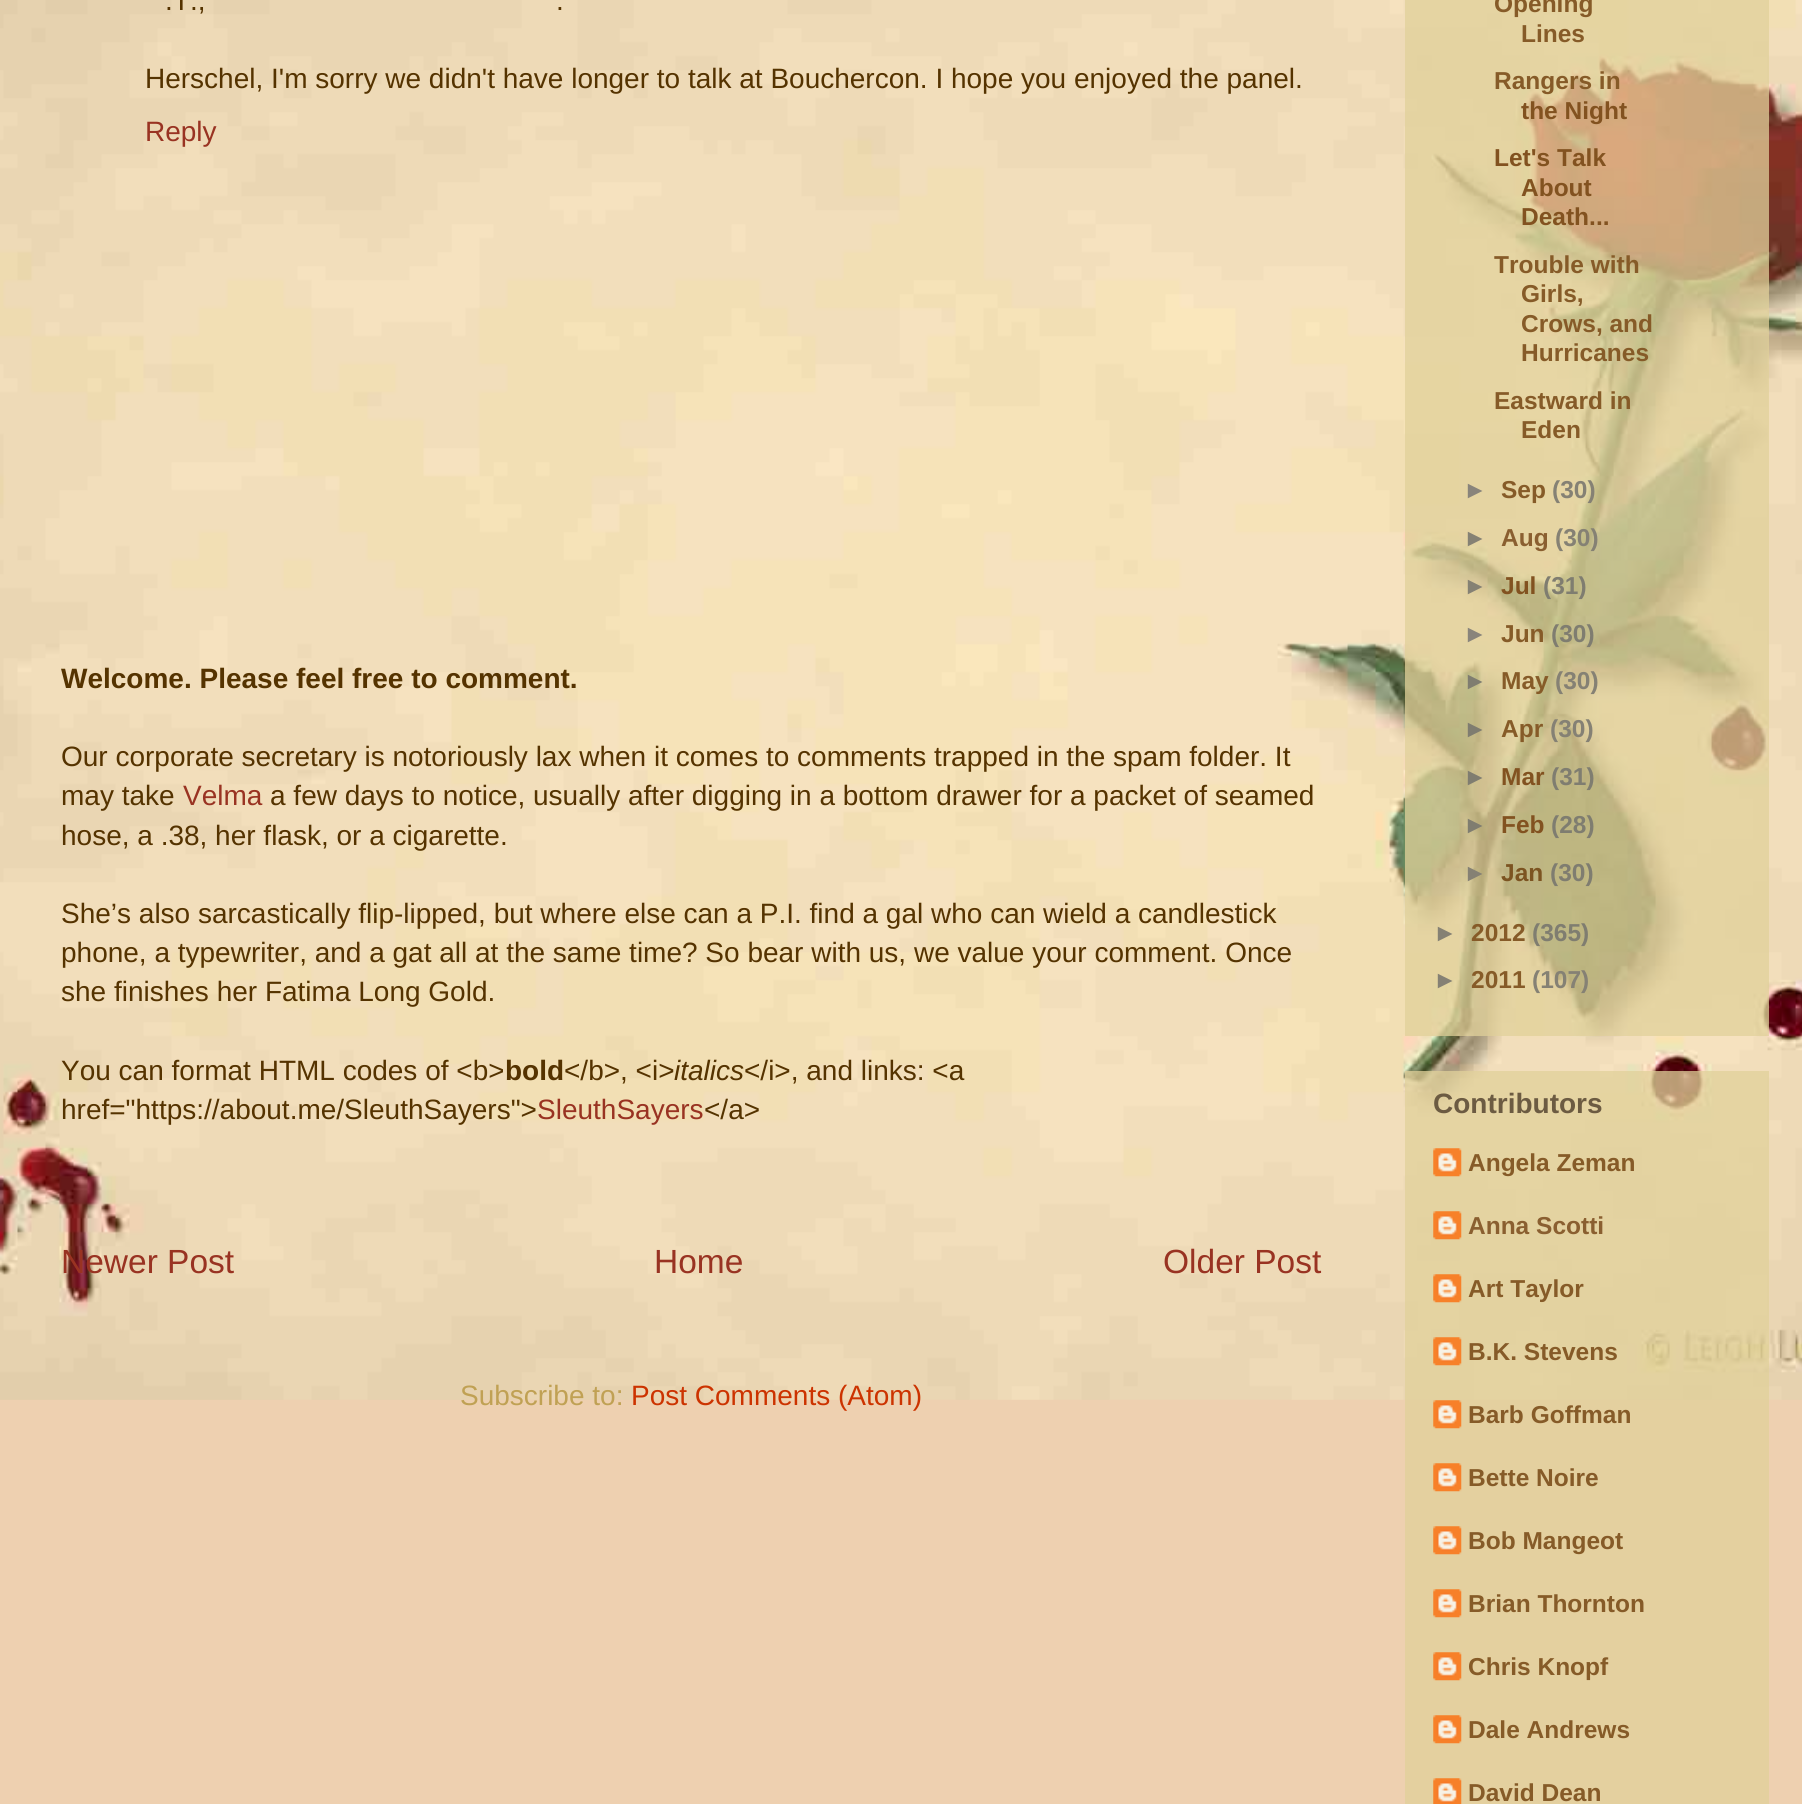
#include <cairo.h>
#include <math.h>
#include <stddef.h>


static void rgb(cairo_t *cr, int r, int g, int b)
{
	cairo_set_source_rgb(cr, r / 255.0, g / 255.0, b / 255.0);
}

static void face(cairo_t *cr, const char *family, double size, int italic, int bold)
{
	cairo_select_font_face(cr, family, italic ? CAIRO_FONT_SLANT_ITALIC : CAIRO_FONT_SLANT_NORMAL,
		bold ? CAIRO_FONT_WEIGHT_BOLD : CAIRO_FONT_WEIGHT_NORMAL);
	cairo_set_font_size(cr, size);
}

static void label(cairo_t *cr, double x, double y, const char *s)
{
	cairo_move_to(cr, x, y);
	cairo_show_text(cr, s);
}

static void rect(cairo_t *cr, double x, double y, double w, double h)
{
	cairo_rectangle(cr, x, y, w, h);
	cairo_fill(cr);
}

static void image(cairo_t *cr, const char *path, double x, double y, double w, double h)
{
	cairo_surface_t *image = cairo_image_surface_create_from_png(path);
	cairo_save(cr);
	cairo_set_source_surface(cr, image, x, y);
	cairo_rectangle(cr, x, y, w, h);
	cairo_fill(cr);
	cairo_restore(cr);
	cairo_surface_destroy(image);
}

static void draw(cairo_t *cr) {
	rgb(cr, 238, 208, 176);
	cairo_paint(cr);
	image(cr, "image0.png", 0, 0, 1802, 1400);
	face(cr, "Liberation Sans", 28, 0, 0);
	rgb(cr, 85, 51, 0);
	label(cr, 165, 10, ".T.,");
	label(cr, 556, 10, ".");
	label(cr, 145, 88, "Herschel, I'm sorry we didn't have longer to talk at Bouchercon. I hope you enjoyed the panel.");
	rgb(cr, 153, 51, 34);
	label(cr, 145, 141, "Reply");
	face(cr, "Liberation Sans", 28, 0, 1);
	rgb(cr, 85, 51, 0);
	label(cr, 61, 688, "Welcome. Please feel free to comment.");
	face(cr, "Liberation Sans", 28, 0, 0);
	label(cr, 61, 766, "Our corporate secretary is notoriously lax when it comes to comments trapped in the spam folder. It");
	label(cr, 61, 805, "may take");
	rgb(cr, 153, 51, 34);
	label(cr, 183, 805, "Velma");
	rgb(cr, 85, 51, 0);
	label(cr, 270, 805, "a few days to notice, usually after digging in a bottom drawer for a packet of seamed");
	label(cr, 61, 845, "hose, a .38, her flask, or a cigarette.");
	label(cr, 61, 923, "She’s also sarcastically flip-lipped, but where else can a P.I. find a gal who can wield a candlestick");
	label(cr, 61, 962, "phone, a typewriter, and a gat all at the same time? So bear with us, we value your comment. Once");
	label(cr, 61, 1001, "she finishes her Fatima Long Gold.");
	label(cr, 61, 1080, "You can format HTML codes of <b>");
	face(cr, "Liberation Sans", 28, 0, 1);
	label(cr, 505, 1080, "bold");
	face(cr, "Liberation Sans", 28, 0, 0);
	label(cr, 564, 1080, "</b>, <i>");
	face(cr, "Liberation Sans", 28, 1, 0);
	label(cr, 674, 1080, "italics");
	face(cr, "Liberation Sans", 28, 0, 0);
	label(cr, 744, 1080, "</i>, and links: <a");
	label(cr, 61, 1119, "href=\"https://about.me/SleuthSayers\">");
	rgb(cr, 153, 51, 34);
	label(cr, 537, 1119, "SleuthSayers");
	rgb(cr, 85, 51, 0);
	label(cr, 704, 1119, "</a>");
	face(cr, "Liberation Sans", 33.5, 0, 0);
	rgb(cr, 153, 51, 34);
	label(cr, 61, 1273, "Newer Post");
	label(cr, 654, 1273, "Home");
	label(cr, 1163, 1273, "Older Post");
	face(cr, "Liberation Sans", 28, 0, 0);
	rgb(cr, 192, 161, 84);
	label(cr, 460, 1405, "Subscribe to:");
	rgb(cr, 204, 51, 0);
	label(cr, 631, 1405, "Post Comments (Atom)");
	cairo_set_source_rgba(cr, 0.878, 0.816, 0.6, 0.75);
	rect(cr, 1405, 0, 364, 1036);
	face(cr, "Liberation Sans", 24.5, 0, 1);
	rgb(cr, 134, 91, 40);
	label(cr, 1494, 12, "Opening");
	label(cr, 1521, 42, "Lines");
	label(cr, 1494, 89, "Rangers in");
	rgb(cr, 130, 82, 32);
	label(cr, 1521, 119, "the Night");
	label(cr, 1494, 166, "Let's Talk");
	label(cr, 1521, 196, "About");
	label(cr, 1521, 225, "Death...");
	rgb(cr, 134, 91, 40);
	label(cr, 1494, 273, "Trouble with");
	label(cr, 1521, 302, "Girls,");
	label(cr, 1521, 332, "Crows, and");
	label(cr, 1521, 361, "Hurricanes");
	label(cr, 1494, 409, "Eastward in");
	label(cr, 1521, 438, "Eden");
	rgb(cr, 137, 132, 123);
	label(cr, 1463, 498, "►");
	rgb(cr, 134, 91, 40);
	label(cr, 1501, 498, "Sep");
	rgb(cr, 133, 129, 116);
	label(cr, 1552, 498, "(30)");
	label(cr, 1463, 546, "►");
	rgb(cr, 138, 95, 48);
	label(cr, 1501, 546, "Aug");
	rgb(cr, 133, 129, 116);
	label(cr, 1555, 546, "(30)");
	label(cr, 1463, 594, "►");
	rgb(cr, 130, 82, 32);
	label(cr, 1501, 594, "Jul");
	rgb(cr, 127, 125, 112);
	label(cr, 1543, 594, "(31)");
	rgb(cr, 137, 132, 123);
	label(cr, 1463, 642, "►");
	rgb(cr, 134, 91, 40);
	label(cr, 1501, 642, "Jun");
	rgb(cr, 127, 125, 112);
	label(cr, 1551, 642, "(30)");
	label(cr, 1463, 689, "►");
	rgb(cr, 134, 91, 40);
	label(cr, 1501, 689, "May");
	rgb(cr, 133, 129, 116);
	label(cr, 1555, 689, "(30)");
	rgb(cr, 127, 125, 112);
	label(cr, 1463, 737, "►");
	rgb(cr, 134, 91, 40);
	label(cr, 1501, 737, "Apr");
	rgb(cr, 133, 129, 116);
	label(cr, 1550, 737, "(30)");
	rgb(cr, 127, 125, 112);
	label(cr, 1463, 785, "►");
	rgb(cr, 130, 82, 32);
	label(cr, 1501, 785, "Mar");
	rgb(cr, 127, 125, 112);
	label(cr, 1551, 785, "(31)");
	label(cr, 1463, 833, "►");
	rgb(cr, 130, 82, 32);
	label(cr, 1501, 833, "Feb");
	rgb(cr, 127, 125, 112);
	label(cr, 1551, 833, "(28)");
	rgb(cr, 133, 129, 116);
	label(cr, 1463, 881, "►");
	rgb(cr, 124, 84, 33);
	label(cr, 1501, 881, "Jan");
	rgb(cr, 127, 125, 112);
	label(cr, 1550, 881, "(30)");
	rgb(cr, 133, 129, 116);
	label(cr, 1433, 941, "►");
	rgb(cr, 134, 91, 40);
	label(cr, 1471, 941, "2012");
	rgb(cr, 127, 125, 112);
	label(cr, 1532, 941, "(365)");
	rgb(cr, 133, 129, 116);
	label(cr, 1433, 988, "►");
	rgb(cr, 134, 91, 40);
	label(cr, 1471, 988, "2011");
	rgb(cr, 133, 129, 116);
	label(cr, 1532, 988, "(107)");
	cairo_set_source_rgba(cr, 0.878, 0.816, 0.6, 0.75);
	rect(cr, 1405, 1071, 364, 733);
	face(cr, "Liberation Sans", 28, 0, 1);
	rgb(cr, 108, 91, 66);
	label(cr, 1433, 1113, "Contributors");
	image(cr, "image1.png", 1433, 1148, 29, 29);
	face(cr, "Liberation Sans", 24.5, 0, 1);
	rgb(cr, 134, 91, 40);
	label(cr, 1468, 1171, "Angela Zeman");
	image(cr, "image2.png", 1433, 1211, 29, 29);
	rgb(cr, 138, 95, 48);
	label(cr, 1468, 1234, "Anna Scotti");
	image(cr, "image3.png", 1433, 1274, 29, 29);
	rgb(cr, 134, 91, 40);
	label(cr, 1468, 1297, "Art Taylor");
	image(cr, "image4.png", 1433, 1337, 29, 29);
	label(cr, 1468, 1360, "B.K. Stevens");
	image(cr, "image5.png", 1433, 1400, 29, 29);
	label(cr, 1468, 1423, "Barb Goffman");
	image(cr, "image6.png", 1433, 1463, 29, 29);
	label(cr, 1468, 1486, "Bette Noire");
	image(cr, "image6.png", 1433, 1526, 29, 29);
	label(cr, 1468, 1549, "Bob Mangeot");
	image(cr, "image6.png", 1433, 1589, 29, 29);
	label(cr, 1468, 1612, "Brian Thornton");
	image(cr, "image6.png", 1433, 1652, 29, 29);
	label(cr, 1468, 1675, "Chris Knopf");
	image(cr, "image6.png", 1433, 1715, 29, 29);
	label(cr, 1468, 1738, "Dale Andrews");
	image(cr, "image7.png", 1433, 1778, 29, 26);
	label(cr, 1468, 1801, "David Dean");
}

int main(void) {
	cairo_surface_t *surface = cairo_image_surface_create(CAIRO_FORMAT_RGB24, 1802, 1804);
	cairo_t *cr = cairo_create(surface);
	cairo_font_options_t *options = cairo_font_options_create();
	cairo_font_options_set_hint_metrics(options, CAIRO_HINT_METRICS_OFF);
	cairo_font_options_set_hint_style(options, CAIRO_HINT_STYLE_NONE);
	cairo_set_font_options(cr, options);
	cairo_set_miter_limit(cr, 4);
	draw(cr);
	cairo_surface_write_to_png(surface, "render.png");
	cairo_font_options_destroy(options);
	cairo_destroy(cr);
	cairo_surface_destroy(surface);
	return 0;
}
